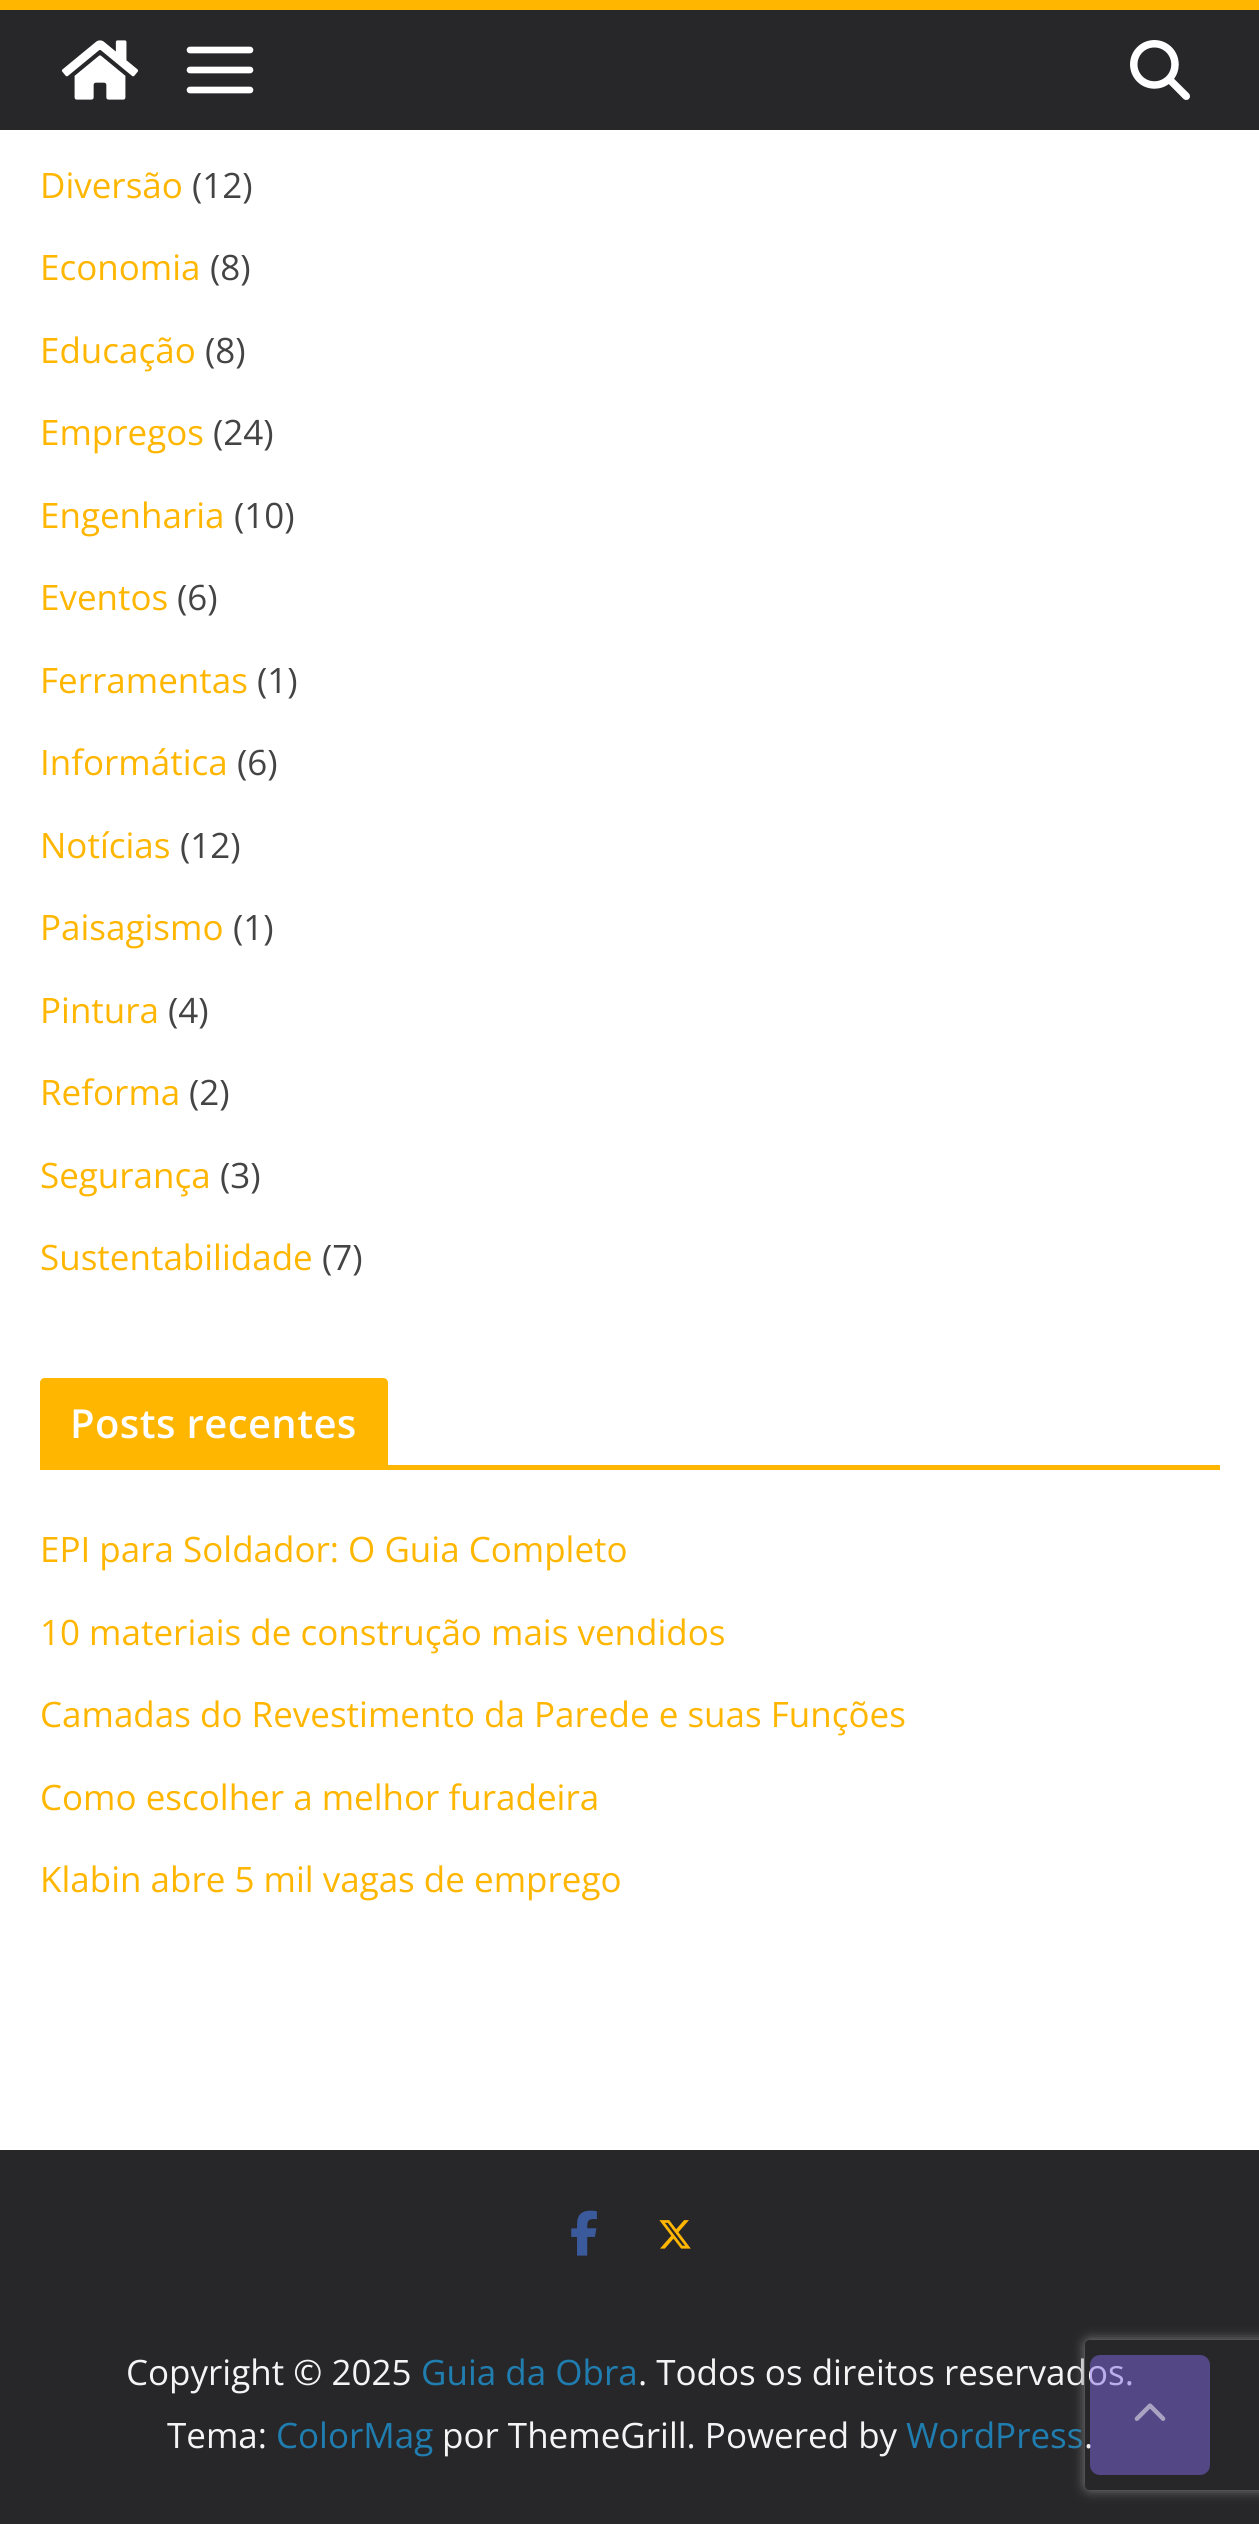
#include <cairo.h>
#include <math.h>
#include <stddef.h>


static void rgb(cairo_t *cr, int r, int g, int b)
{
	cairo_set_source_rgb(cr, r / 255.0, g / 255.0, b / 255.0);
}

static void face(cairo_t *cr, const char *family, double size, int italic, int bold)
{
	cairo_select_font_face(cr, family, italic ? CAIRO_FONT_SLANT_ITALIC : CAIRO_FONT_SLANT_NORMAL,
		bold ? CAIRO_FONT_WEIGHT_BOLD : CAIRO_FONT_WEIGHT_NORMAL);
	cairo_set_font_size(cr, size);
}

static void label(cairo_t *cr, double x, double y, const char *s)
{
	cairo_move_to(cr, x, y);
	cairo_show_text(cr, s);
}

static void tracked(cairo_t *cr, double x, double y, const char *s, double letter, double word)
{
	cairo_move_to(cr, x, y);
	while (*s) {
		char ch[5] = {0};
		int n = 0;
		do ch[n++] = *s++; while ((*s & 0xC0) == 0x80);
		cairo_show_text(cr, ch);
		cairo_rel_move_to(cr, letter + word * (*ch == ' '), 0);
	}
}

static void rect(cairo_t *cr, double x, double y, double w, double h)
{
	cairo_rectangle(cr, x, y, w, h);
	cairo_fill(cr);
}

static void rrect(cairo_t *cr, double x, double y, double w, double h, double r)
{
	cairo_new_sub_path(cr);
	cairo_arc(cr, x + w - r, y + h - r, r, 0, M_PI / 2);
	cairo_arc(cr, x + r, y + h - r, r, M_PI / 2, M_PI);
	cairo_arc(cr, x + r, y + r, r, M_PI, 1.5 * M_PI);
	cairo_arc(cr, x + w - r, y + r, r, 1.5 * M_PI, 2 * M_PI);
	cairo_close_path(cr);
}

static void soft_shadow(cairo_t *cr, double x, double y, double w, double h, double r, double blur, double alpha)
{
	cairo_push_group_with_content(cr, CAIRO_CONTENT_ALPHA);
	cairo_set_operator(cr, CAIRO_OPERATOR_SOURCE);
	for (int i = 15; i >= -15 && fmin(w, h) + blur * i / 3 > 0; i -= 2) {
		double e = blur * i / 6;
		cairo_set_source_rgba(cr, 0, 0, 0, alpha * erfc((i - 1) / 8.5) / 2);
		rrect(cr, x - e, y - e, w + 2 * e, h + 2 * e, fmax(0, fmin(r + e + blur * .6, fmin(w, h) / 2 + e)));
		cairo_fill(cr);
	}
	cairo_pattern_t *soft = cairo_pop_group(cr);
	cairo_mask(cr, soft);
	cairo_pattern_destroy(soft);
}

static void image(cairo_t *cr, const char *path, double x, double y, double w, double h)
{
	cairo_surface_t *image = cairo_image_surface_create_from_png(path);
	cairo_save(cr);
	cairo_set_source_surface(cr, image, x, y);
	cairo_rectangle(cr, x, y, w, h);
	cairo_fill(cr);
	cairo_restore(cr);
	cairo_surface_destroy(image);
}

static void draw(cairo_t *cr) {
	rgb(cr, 255, 255, 255);
	cairo_paint(cr);
	rgb(cr, 39, 39, 42);
	rect(cr, 0, 10, 1259, 120);
	rgb(cr, 255, 182, 0);
	rect(cr, 0, 0, 1259, 10);
	image(cr, "image0.png", 61, 40, 78, 60);
	image(cr, "image1.png", 186, 46, 68, 48);
	image(cr, "image2.png", 1130, 40, 60, 60);
	face(cr, "Open Sans", 35, 0, 0);
	label(cr, 40, 198, "Diversão");
	rgb(cr, 68, 68, 68);
	label(cr, 192, 198, "(12)");
	rgb(cr, 255, 182, 0);
	label(cr, 40, 280, "Economia");
	rgb(cr, 68, 68, 68);
	label(cr, 210, 280, "(8)");
	rgb(cr, 255, 182, 0);
	label(cr, 40, 363, "Educação");
	rgb(cr, 68, 68, 68);
	label(cr, 205, 363, "(8)");
	rgb(cr, 255, 182, 0);
	label(cr, 40, 445, "Empregos");
	rgb(cr, 68, 68, 68);
	label(cr, 213, 445, "(24)");
	rgb(cr, 255, 182, 0);
	label(cr, 40, 528, "Engenharia");
	rgb(cr, 68, 68, 68);
	label(cr, 234, 528, "(10)");
	rgb(cr, 255, 182, 0);
	label(cr, 40, 610, "Eventos");
	rgb(cr, 68, 68, 68);
	label(cr, 177, 610, "(6)");
	rgb(cr, 255, 182, 0);
	label(cr, 40, 693, "Ferramentas");
	rgb(cr, 68, 68, 68);
	label(cr, 257, 693, "(1)");
	rgb(cr, 255, 182, 0);
	label(cr, 40, 775, "Informática");
	rgb(cr, 68, 68, 68);
	label(cr, 237, 775, "(6)");
	rgb(cr, 255, 182, 0);
	label(cr, 40, 858, "Notícias");
	rgb(cr, 68, 68, 68);
	label(cr, 180, 858, "(12)");
	rgb(cr, 255, 182, 0);
	label(cr, 40, 940, "Paisagismo");
	rgb(cr, 68, 68, 68);
	label(cr, 233, 940, "(1)");
	rgb(cr, 255, 182, 0);
	label(cr, 40, 1023, "Pintura");
	rgb(cr, 68, 68, 68);
	label(cr, 168, 1023, "(4)");
	rgb(cr, 255, 182, 0);
	label(cr, 40, 1105, "Reforma");
	rgb(cr, 68, 68, 68);
	label(cr, 189, 1105, "(2)");
	rgb(cr, 255, 182, 0);
	label(cr, 40, 1188, "Segurança");
	rgb(cr, 68, 68, 68);
	label(cr, 220, 1188, "(3)");
	rgb(cr, 255, 182, 0);
	label(cr, 40, 1270, "Sustentabilidade");
	rgb(cr, 68, 68, 68);
	label(cr, 322, 1270, "(7)");
	rgb(cr, 255, 182, 0);
	rect(cr, 40, 1465, 1180, 5);
	cairo_new_path(cr);
	cairo_move_to(cr, 45, 1378);
	cairo_line_to(cr, 383, 1378);
	cairo_curve_to(cr, 386, 1378, 388, 1380, 388, 1383);
	cairo_line_to(cr, 388, 1465);
	cairo_line_to(cr, 40, 1465);
	cairo_line_to(cr, 40, 1383);
	cairo_curve_to(cr, 40, 1380, 42, 1378, 45, 1378);
	cairo_close_path(cr);
	cairo_fill(cr);
	face(cr, "Open Sans SemiBold", 40, 0, 0);
	rgb(cr, 255, 255, 255);
	tracked(cr, 70, 1438, "Posts recentes", 0.4, 0);
	face(cr, "Open Sans", 35, 0, 0);
	rgb(cr, 255, 182, 0);
	label(cr, 40, 1562, "EPI para Soldador: O Guia Completo");
	label(cr, 40, 1645, "10 materiais de construção mais vendidos");
	label(cr, 40, 1727, "Camadas do Revestimento da Parede e suas Funções");
	label(cr, 40, 1810, "Como escolher a melhor furadeira");
	label(cr, 40, 1892, "Klabin abre 5 mil vagas de emprego");
	rgb(cr, 39, 39, 42);
	rect(cr, 0, 2150, 1259, 374);
	image(cr, "image3.png", 571, 2210, 26, 46);
	image(cr, "image4.png", 659, 2220, 32, 29);
	rgb(cr, 244, 244, 245);
	label(cr, 126, 2385, "Copyright © 2025");
	rgb(cr, 32, 125, 175);
	label(cr, 421, 2385, "Guia da Obra");
	rgb(cr, 244, 244, 245);
	label(cr, 638, 2385, ". Todos os direitos reservados.");
	label(cr, 167, 2448, "Tema:");
	rgb(cr, 32, 125, 175);
	label(cr, 276, 2448, "ColorMag");
	rgb(cr, 244, 244, 245);
	label(cr, 442, 2448, "por ThemeGrill. Powered by");
	rgb(cr, 32, 125, 175);
	label(cr, 906, 2448, "WordPress");
	rgb(cr, 244, 244, 245);
	label(cr, 1084, 2448, ".");
	cairo_save(cr);
	cairo_set_fill_rule(cr, CAIRO_FILL_RULE_EVEN_ODD);
	cairo_new_path(cr);
	cairo_move_to(cr, 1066, 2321);
	cairo_line_to(cr, 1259, 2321);
	cairo_line_to(cr, 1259, 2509);
	cairo_line_to(cr, 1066, 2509);
	cairo_close_path(cr);
	cairo_move_to(cr, 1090, 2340);
	cairo_line_to(cr, 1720, 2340);
	cairo_curve_to(cr, 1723, 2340, 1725, 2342, 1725, 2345);
	cairo_line_to(cr, 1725, 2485);
	cairo_curve_to(cr, 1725, 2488, 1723, 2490, 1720, 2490);
	cairo_line_to(cr, 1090, 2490);
	cairo_curve_to(cr, 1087, 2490, 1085, 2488, 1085, 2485);
	cairo_line_to(cr, 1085, 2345);
	cairo_curve_to(cr, 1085, 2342, 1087, 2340, 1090, 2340);
	cairo_close_path(cr);
	cairo_clip(cr);
	rgb(cr, 128, 128, 128);
	soft_shadow(cr, 1085, 2340, 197, 150, 5, 6, 1);
	cairo_restore(cr);
	cairo_set_source_rgba(cr, 0.51, 0.412, 0.875, 0.5);
	rrect(cr, 1090, 2355, 120, 120, 10);
	cairo_fill(cr);
	image(cr, "image5.png", 1134, 2403, 32, 18);
}

int main(void) {
	cairo_surface_t *surface = cairo_image_surface_create(CAIRO_FORMAT_RGB24, 1259, 2524);
	cairo_t *cr = cairo_create(surface);
	cairo_font_options_t *options = cairo_font_options_create();
	cairo_font_options_set_hint_metrics(options, CAIRO_HINT_METRICS_OFF);
	cairo_font_options_set_hint_style(options, CAIRO_HINT_STYLE_NONE);
	cairo_set_font_options(cr, options);
	cairo_set_miter_limit(cr, 4);
	draw(cr);
	cairo_surface_write_to_png(surface, "render.png");
	cairo_font_options_destroy(options);
	cairo_destroy(cr);
	cairo_surface_destroy(surface);
	return 0;
}
